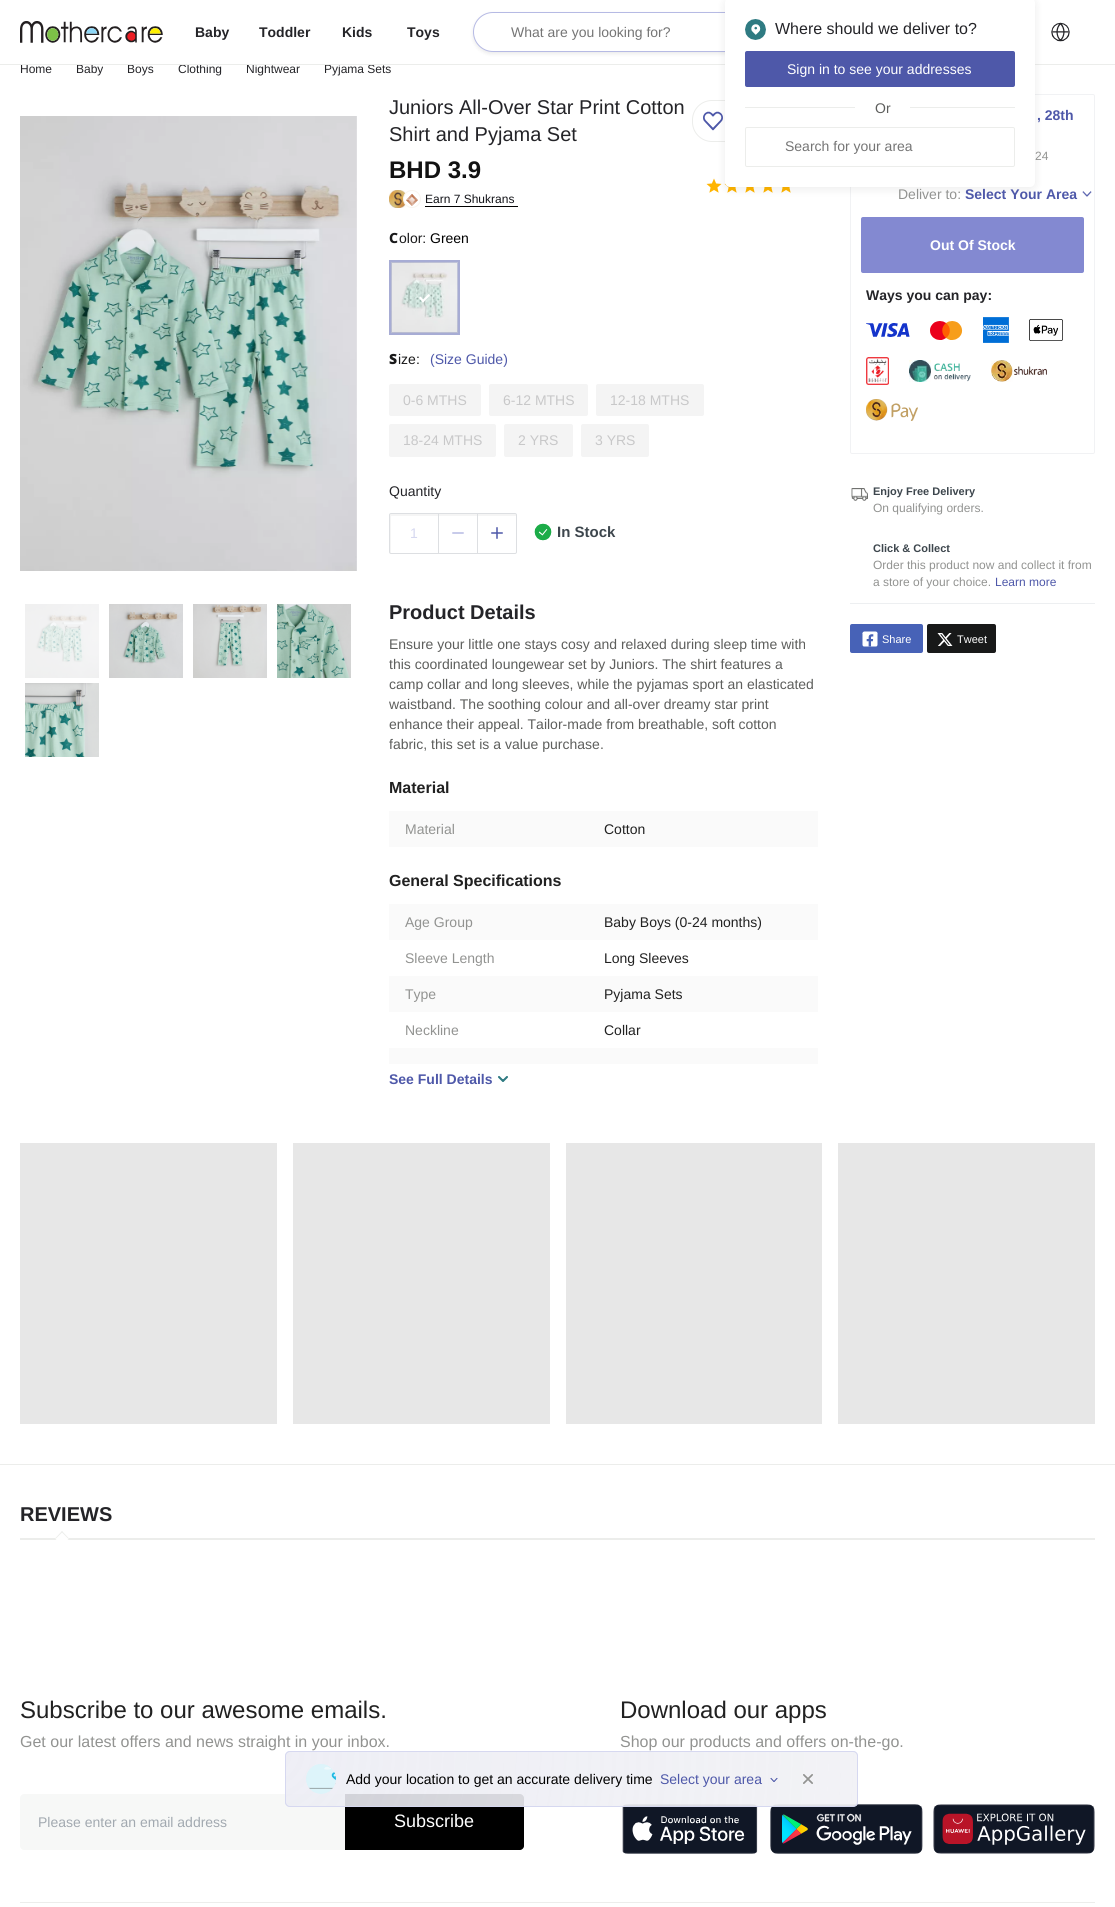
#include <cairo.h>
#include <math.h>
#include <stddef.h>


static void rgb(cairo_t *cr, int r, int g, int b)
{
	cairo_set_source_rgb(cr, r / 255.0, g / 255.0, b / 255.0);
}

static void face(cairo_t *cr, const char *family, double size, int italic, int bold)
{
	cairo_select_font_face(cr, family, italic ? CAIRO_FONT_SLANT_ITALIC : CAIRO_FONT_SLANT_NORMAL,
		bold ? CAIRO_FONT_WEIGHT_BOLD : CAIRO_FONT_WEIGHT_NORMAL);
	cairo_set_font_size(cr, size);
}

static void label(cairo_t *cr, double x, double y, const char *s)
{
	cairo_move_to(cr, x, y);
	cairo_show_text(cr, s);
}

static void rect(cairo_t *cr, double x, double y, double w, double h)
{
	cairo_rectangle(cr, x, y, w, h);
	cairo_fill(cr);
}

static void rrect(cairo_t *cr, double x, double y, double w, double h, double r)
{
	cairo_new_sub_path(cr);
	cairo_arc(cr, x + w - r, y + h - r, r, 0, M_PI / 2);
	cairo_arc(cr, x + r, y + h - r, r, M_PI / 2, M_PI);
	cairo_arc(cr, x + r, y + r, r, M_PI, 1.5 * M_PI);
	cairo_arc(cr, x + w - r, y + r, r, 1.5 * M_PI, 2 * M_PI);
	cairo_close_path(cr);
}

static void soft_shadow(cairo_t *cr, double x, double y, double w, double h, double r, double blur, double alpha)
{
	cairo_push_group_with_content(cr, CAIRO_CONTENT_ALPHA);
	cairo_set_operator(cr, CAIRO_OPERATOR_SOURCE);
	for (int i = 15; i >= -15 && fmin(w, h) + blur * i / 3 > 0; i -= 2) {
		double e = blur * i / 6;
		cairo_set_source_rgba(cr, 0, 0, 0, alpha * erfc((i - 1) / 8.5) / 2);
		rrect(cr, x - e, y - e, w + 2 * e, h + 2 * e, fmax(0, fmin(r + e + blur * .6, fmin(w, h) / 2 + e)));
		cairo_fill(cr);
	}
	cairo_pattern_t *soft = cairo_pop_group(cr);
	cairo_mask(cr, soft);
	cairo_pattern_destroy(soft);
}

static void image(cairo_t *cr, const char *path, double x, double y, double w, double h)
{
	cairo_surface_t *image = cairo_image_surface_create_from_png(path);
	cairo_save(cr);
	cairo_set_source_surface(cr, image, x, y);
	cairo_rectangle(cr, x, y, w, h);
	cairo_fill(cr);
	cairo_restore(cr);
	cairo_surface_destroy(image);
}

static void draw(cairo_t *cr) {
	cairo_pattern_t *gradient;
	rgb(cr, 255, 255, 255);
	cairo_paint(cr);
	face(cr, "Liberation Sans", 12, 0, 0);
	rgb(cr, 36, 36, 40);
	label(cr, 20, 73, "Home");
	label(cr, 76, 73, "Baby");
	label(cr, 127, 73, "Boys");
	label(cr, 178, 73, "Clothing");
	label(cr, 246, 73, "Nightwear");
	label(cr, 324, 73, "Pyjama Sets");
	rgb(cr, 236, 237, 235);
	rect(cr, 0, 64, 1115, 1);
	rgb(cr, 0, 0, 0);
	soft_shadow(cr, 473, 14, 312, 40, 20, 2, 0.08);
	rgb(cr, 255, 255, 255);
	rrect(cr, 473.5, 12.5, 311, 39, 19.5);
	cairo_fill_preserve(cr);
	rgb(cr, 182, 186, 228);
	cairo_set_line_width(cr, 1);
	cairo_stroke(cr);
	rrect(cr, 692.5, 100.5, 120, 41, 19.5);
	rgb(cr, 236, 237, 235);
	cairo_stroke(cr);
	image(cr, "image12.png", 703, 111, 20, 20);
	image(cr, "image15.png", 706, 178, 16, 15);
	image(cr, "image16.png", 724, 183, 13, 10);
	image(cr, "image17.png", 745, 187, 10, 6);
	image(cr, "image17.png", 763, 187, 10, 6);
	image(cr, "image17.png", 781, 187, 10, 6);
	rrect(cr, 850.5, 94.5, 244, 359, 1.5);
	rgb(cr, 241, 242, 244);
	cairo_stroke(cr);
	rgb(cr, 0, 0, 0);
	soft_shadow(cr, 725, 0, 310, 189, 5, 5, 0.08);
	rgb(cr, 255, 255, 255);
	rrect(cr, 725, -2, 310, 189, 5);
	cairo_fill(cr);
	image(cr, "image0.png", 745, 19, 21, 21);
	face(cr, "Liberation Sans", 16, 0, 0);
	rgb(cr, 36, 36, 40);
	label(cr, 775, 34, "Where should we deliver to?");
	rgb(cr, 78, 88, 169);
	rrect(cr, 745, 51, 270, 36, 2);
	cairo_fill(cr);
	face(cr, "Liberation Sans", 14, 0, 0);
	rgb(cr, 255, 255, 255);
	label(cr, 787, 74, "Sign in to see your addresses");
	rgb(cr, 236, 237, 235);
	rect(cr, 745, 107, 270, 1);
	rgb(cr, 255, 255, 255);
	rect(cr, 855, 107, 55, 1);
	rgb(cr, 93, 94, 92);
	label(cr, 875, 113, "Or");
	rrect(cr, 745.5, 127.5, 269, 39, 1.5);
	rgb(cr, 236, 237, 235);
	cairo_stroke(cr);
	rgb(cr, 117, 117, 117);
	label(cr, 785, 151, "Search for your area");
	rgb(cr, 247, 248, 247);
	cairo_new_path(cr);
	cairo_move_to(cr, 24, 1794);
	cairo_line_to(cr, 345, 1794);
	cairo_line_to(cr, 345, 1850);
	cairo_line_to(cr, 24, 1850);
	cairo_curve_to(cr, 22, 1850, 20, 1848, 20, 1846);
	cairo_line_to(cr, 20, 1798);
	cairo_curve_to(cr, 20, 1796, 22, 1794, 24, 1794);
	cairo_close_path(cr);
	cairo_fill(cr);
	rgb(cr, 0, 0, 0);
	cairo_new_path(cr);
	cairo_move_to(cr, 345, 1794);
	cairo_line_to(cr, 520, 1794);
	cairo_curve_to(cr, 522, 1794, 524, 1796, 524, 1798);
	cairo_line_to(cr, 524, 1846);
	cairo_curve_to(cr, 524, 1848, 522, 1850, 520, 1850);
	cairo_line_to(cr, 345, 1850);
	cairo_close_path(cr);
	cairo_fill(cr);
	image(cr, "image35.png", 622, 1804, 136, 50);
	image(cr, "image36.png", 770, 1804, 153, 50);
	cairo_set_source_rgba(cr, 0.839, 0.847, 0.941, 0.7);
	rrect(cr, 285, 1751, 573, 56, 5);
	cairo_fill(cr);
	cairo_save(cr);
	rrect(cr, 285, 1751, 573, 56, 5);
	cairo_clip(cr);
	gradient = cairo_pattern_create_radial(269, 1752, 0, 269, 1752, 614);
	cairo_pattern_add_color_stop_rgba(gradient, 0, 0.965, 0.965, 0.965, 0.6);
	cairo_pattern_add_color_stop_rgba(gradient, 1, 0.965, 0.965, 0.965, 0.8);
	cairo_set_source(cr, gradient);
	cairo_pattern_destroy(gradient);
	rect(cr, 286, 1752, 571, 54);
	cairo_restore(cr);
	rrect(cr, 285.5, 1751.5, 572, 55, 4.5);
	rgb(cr, 214, 216, 240);
	cairo_stroke(cr);
	image(cr, "image1.png", 306, 1764, 30, 30);
	rgb(cr, 0, 0, 0);
	label(cr, 346, 1784, "Add your location to get an accurate delivery time");
	rgb(cr, 78, 88, 169);
	label(cr, 660, 1784, "Select your area");
	image(cr, "image2.png", 770, 1777, 8, 5);
	image(cr, "image3.png", 803, 1774, 10, 10);
	image(cr, "image4.png", 20, 21, 143, 22);
	face(cr, "Liberation Sans", 14, 0, 1);
	rgb(cr, 36, 36, 40);
	label(cr, 195, 37, "Baby");
	label(cr, 259, 37, "Toddler");
	label(cr, 342, 37, "Kids");
	label(cr, 407, 37, "Toys");
	face(cr, "Liberation Sans", 14, 0, 0);
	rgb(cr, 117, 117, 117);
	label(cr, 511, 37, "What are you looking for?");
	image(cr, "image5.png", 1051, 22, 19, 20);
	image(cr, "image6.png", 20, 116, 337, 455);
	image(cr, "image7.png", 25, 604, 74, 74);
	image(cr, "image8.png", 109, 604, 74, 74);
	image(cr, "image9.png", 193, 604, 74, 74);
	image(cr, "image10.png", 277, 604, 74, 74);
	image(cr, "image11.png", 25, 683, 74, 74);
	face(cr, "Liberation Sans", 20, 0, 0);
	rgb(cr, 36, 36, 40);
	label(cr, 389, 114, "Juniors All-Over Star Print Cotton");
	label(cr, 389, 141, "Shirt and Pyjama Set");
	face(cr, "Liberation Sans", 24, 0, 1);
	rgb(cr, 18, 18, 18);
	label(cr, 389, 178, "BHD 3.9");
	image(cr, "image13.png", 389, 190, 17, 18);
	rgb(cr, 255, 255, 255);
	cairo_arc(cr, 412, 199, 8.5, 0, 2 * M_PI);
	cairo_fill_preserve(cr);
	rgb(cr, 249, 245, 239);
	cairo_stroke(cr);
	image(cr, "image14.png", 406, 194, 12, 12);
	face(cr, "Liberation Sans", 12, 0, 0);
	rgb(cr, 18, 19, 24);
	label(cr, 425, 203, "Earn 7 Shukrans");
	rgb(cr, 0, 0, 0);
	rect(cr, 425, 206, 93, 1);
	face(cr, "Noto Sans ExtraBold", 14, 0, 0);
	rgb(cr, 25, 25, 26);
	label(cr, 389, 243, "C");
	face(cr, "Liberation Sans", 14, 0, 0);
	label(cr, 399, 243, "olor:");
	rgb(cr, 0, 0, 0);
	label(cr, 430, 243, "Green");
	cairo_rectangle(cr, 391.5, 262.5, 66, 70);
	rgb(cr, 167, 172, 212);
	cairo_stroke(cr);
	cairo_rectangle(cr, 390, 261, 69, 73);
	cairo_set_line_width(cr, 2);
	cairo_stroke(cr);
	image(cr, "image18.png", 391, 262, 67, 71);
	rgb(cr, 255, 255, 255);
	cairo_new_path(cr);
	cairo_move_to(cr, 421.5, 301);
	cairo_line_to(cr, 428.5, 294);
	cairo_line_to(cr, 430, 295.5);
	cairo_line_to(cr, 423, 302.5);
	cairo_close_path(cr);
	cairo_fill(cr);
	cairo_new_path(cr);
	cairo_move_to(cr, 419, 298);
	cairo_line_to(cr, 420.5, 296.5);
	cairo_line_to(cr, 424.5, 301);
	cairo_line_to(cr, 423, 302.5);
	cairo_close_path(cr);
	cairo_fill(cr);
	face(cr, "Noto Sans Black", 14, 0, 0);
	rgb(cr, 25, 25, 26);
	label(cr, 389, 364, "S");
	face(cr, "Liberation Sans", 14, 0, 0);
	label(cr, 398, 364, "ize:");
	rgb(cr, 78, 88, 169);
	label(cr, 430, 364, "(Size Guide)");
	rgb(cr, 244, 244, 244);
	rrect(cr, 389, 384, 92, 32, 2);
	cairo_fill(cr);
	rgb(cr, 200, 200, 201);
	label(cr, 403, 405, "0-6 MTHS");
	rgb(cr, 244, 244, 244);
	rrect(cr, 489, 384, 99, 32, 2);
	cairo_fill(cr);
	rgb(cr, 200, 200, 201);
	label(cr, 503, 405, "6-12 MTHS");
	rgb(cr, 244, 244, 244);
	rrect(cr, 596, 384, 108, 32, 2);
	cairo_fill(cr);
	rgb(cr, 200, 200, 201);
	label(cr, 610, 405, "12-18 MTHS");
	rgb(cr, 244, 244, 244);
	rrect(cr, 389, 424, 107, 33, 2);
	cairo_fill(cr);
	rgb(cr, 200, 200, 201);
	label(cr, 403, 445, "18-24 MTHS");
	rgb(cr, 244, 244, 244);
	rrect(cr, 504, 424, 69, 33, 2);
	cairo_fill(cr);
	rgb(cr, 200, 200, 201);
	label(cr, 518, 445, "2 YRS");
	rgb(cr, 244, 244, 244);
	rrect(cr, 581, 424, 68, 33, 2);
	cairo_fill(cr);
	rgb(cr, 200, 200, 201);
	label(cr, 595, 445, "3 YRS");
	rgb(cr, 36, 36, 40);
	label(cr, 389, 496, "Quantity");
	rgb(cr, 245, 245, 245);
	cairo_new_path(cr);
	cairo_move_to(cr, 392, 516);
	cairo_line_to(cr, 516, 516);
	cairo_line_to(cr, 516, 515);
	cairo_curve_to(cr, 516, 514, 516, 514, 515, 514);
	cairo_line_to(cr, 391, 514);
	cairo_curve_to(cr, 390, 514, 390, 514, 390, 515);
	cairo_line_to(cr, 390, 552);
	cairo_curve_to(cr, 390, 553, 390, 553, 391, 553);
	cairo_line_to(cr, 391, 517);
	cairo_curve_to(cr, 391, 516, 391, 516, 392, 516);
	cairo_close_path(cr);
	cairo_fill(cr);
	rrect(cr, 389.5, 513.5, 127, 40, 1.5);
	rgb(cr, 221, 223, 226);
	cairo_set_line_width(cr, 1);
	cairo_stroke(cr);
	rgb(cr, 214, 216, 240);
	label(cr, 410, 538, "1");
	rgb(cr, 221, 223, 226);
	rect(cr, 477, 513, 1, 41);
	rect(cr, 438, 513, 1, 41);
	image(cr, "image19.png", 452, 532, 12, 2);
	image(cr, "image20.png", 491, 527, 12, 12);
	image(cr, "image21.png", 534, 523, 18, 18);
	face(cr, "Liberation Sans", 15, 0, 1);
	rgb(cr, 61, 70, 77);
	label(cr, 557, 537, "In Stock");
	face(cr, "Liberation Sans", 20, 0, 1);
	rgb(cr, 36, 36, 40);
	label(cr, 389, 619, "Product Details");
	face(cr, "Liberation Sans", 14, 0, 0);
	rgb(cr, 93, 94, 92);
	label(cr, 389, 649, "Ensure your little one stays cosy and relaxed during sleep time with");
	label(cr, 389, 669, "this coordinated loungewear set by Juniors. The shirt features a");
	label(cr, 389, 689, "camp collar and long sleeves, while the pyjamas sport an elasticated");
	label(cr, 389, 709, "waistband. The soothing colour and all-over dreamy star print");
	label(cr, 389, 729, "enhance their appeal. Tailor-made from breathable, soft cotton");
	label(cr, 389, 749, "fabric, this set is a value purchase.");
	face(cr, "Liberation Sans", 16, 0, 1);
	rgb(cr, 33, 33, 33);
	label(cr, 389, 793, "Material");
	rgb(cr, 250, 250, 250);
	rect(cr, 389, 811, 429, 36);
	face(cr, "Liberation Sans", 14, 0, 0);
	rgb(cr, 146, 147, 145);
	label(cr, 405, 834, "Material");
	rgb(cr, 33, 33, 33);
	label(cr, 604, 834, "Cotton");
	face(cr, "Liberation Sans", 16, 0, 1);
	label(cr, 389, 886, "General Specifications");
	rgb(cr, 250, 250, 250);
	rect(cr, 389, 904, 429, 36);
	face(cr, "Liberation Sans", 14, 0, 0);
	rgb(cr, 146, 147, 145);
	label(cr, 405, 927, "Age Group");
	rgb(cr, 33, 33, 33);
	label(cr, 604, 927, "Baby Boys (0-24 months)");
	rgb(cr, 146, 147, 145);
	label(cr, 405, 963, "Sleeve Length");
	rgb(cr, 33, 33, 33);
	label(cr, 604, 963, "Long Sleeves");
	rgb(cr, 250, 250, 250);
	rect(cr, 389, 976, 429, 36);
	rgb(cr, 146, 147, 145);
	label(cr, 405, 999, "Type");
	rgb(cr, 33, 33, 33);
	label(cr, 604, 999, "Pyjama Sets");
	rgb(cr, 146, 147, 145);
	label(cr, 405, 1035, "Neckline");
	rgb(cr, 33, 33, 33);
	label(cr, 604, 1035, "Collar");
	rgb(cr, 250, 250, 250);
	rect(cr, 389, 1048, 429, 16);
	face(cr, "Liberation Sans", 14, 0, 1);
	rgb(cr, 78, 88, 169);
	label(cr, 389, 1084, "See Full Details");
	image(cr, "image22.png", 498, 1076, 10, 6);
	label(cr, 1037, 120, ", 28th");
	face(cr, "Liberation Sans", 12, 0, 0);
	rgb(cr, 146, 147, 145);
	label(cr, 1035, 160, "24");
	face(cr, "Liberation Sans", 14, 0, 0);
	label(cr, 898, 199, "Deliver to:");
	face(cr, "Liberation Sans", 14, 0, 1);
	rgb(cr, 78, 88, 169);
	label(cr, 965, 199, "Select Your Area");
	image(cr, "image23.png", 1082, 191, 10, 6);
	rgb(cr, 131, 137, 209);
	rrect(cr, 861, 217, 223, 56, 2);
	cairo_fill(cr);
	rgb(cr, 255, 255, 255);
	label(cr, 930, 250, "Out Of Stock");
	rgb(cr, 36, 36, 40);
	label(cr, 866, 300, "Ways you can pay:");
	image(cr, "image24.png", 866, 323, 44, 14);
	image(cr, "image25.png", 930, 321, 33, 19);
	image(cr, "image26.png", 983, 317, 26, 26);
	image(cr, "image27.png", 1029, 319, 34, 22);
	image(cr, "image28.png", 866, 357, 23, 28);
	image(cr, "image29.png", 909, 360, 62, 22);
	image(cr, "image30.png", 991, 360, 56, 22);
	image(cr, "image31.png", 866, 399, 52, 22);
	image(cr, "image32.png", 851, 488, 17, 13);
	face(cr, "Liberation Sans", 11, 0, 1);
	rgb(cr, 61, 70, 77);
	label(cr, 873, 495, "Enjoy Free Delivery");
	face(cr, "Liberation Sans", 12, 0, 0);
	rgb(cr, 146, 147, 145);
	label(cr, 873, 512, "On qualifying orders.");
	face(cr, "Liberation Sans", 11, 0, 1);
	rgb(cr, 61, 70, 77);
	label(cr, 873, 552, "Click & Collect");
	face(cr, "Liberation Sans", 12, 0, 0);
	rgb(cr, 146, 147, 145);
	label(cr, 873, 569, "Order this product now and collect it from");
	label(cr, 873, 586, "a store of your choice.");
	rgb(cr, 78, 88, 169);
	label(cr, 995, 586, "Learn more");
	rgb(cr, 237, 239, 241);
	rect(cr, 850, 603, 245, 1);
	rgb(cr, 71, 98, 183);
	rrect(cr, 850, 624, 73, 29, 2);
	cairo_fill(cr);
	image(cr, "image33.png", 862, 631, 16, 16);
	face(cr, "Liberation Sans", 11, 0, 0);
	rgb(cr, 255, 255, 255);
	label(cr, 882, 643, "Share");
	rgb(cr, 24, 25, 25);
	rrect(cr, 927, 624, 69, 29, 2);
	cairo_fill(cr);
	image(cr, "image34.png", 937, 633, 16, 13);
	rgb(cr, 255, 255, 255);
	label(cr, 957, 643, "Tweet");
	rgb(cr, 231, 231, 231);
	rect(cr, 20, 1143, 257, 281);
	rect(cr, 293, 1143, 257, 281);
	rect(cr, 566, 1143, 256, 281);
	rect(cr, 838, 1143, 257, 281);
	rgb(cr, 236, 237, 235);
	rect(cr, 0, 1464, 1115, 1);
	face(cr, "Liberation Sans", 20, 0, 1);
	rgb(cr, 36, 36, 40);
	label(cr, 20, 1521, "REVIEWS");
	rgb(cr, 236, 237, 235);
	rect(cr, 20, 1538, 1075, 2);
	rgb(cr, 255, 255, 255);
	cairo_new_path(cr);
	cairo_move_to(cr, 62, 1531);
	cairo_line_to(cr, 69, 1538.5);
	cairo_line_to(cr, 62, 1545.5);
	cairo_line_to(cr, 55, 1538.5);
	cairo_close_path(cr);
	cairo_fill(cr);
	rgb(cr, 236, 237, 235);
	cairo_new_path(cr);
	cairo_move_to(cr, 62, 1531);
	cairo_line_to(cr, 69, 1538.5);
	cairo_line_to(cr, 68.5, 1539);
	cairo_line_to(cr, 61.5, 1532);
	cairo_close_path(cr);
	cairo_fill(cr);
	cairo_new_path(cr);
	cairo_move_to(cr, 62, 1531);
	cairo_line_to(cr, 62.5, 1532);
	cairo_line_to(cr, 55.5, 1539);
	cairo_line_to(cr, 55, 1538.5);
	cairo_close_path(cr);
	cairo_fill(cr);
	face(cr, "Liberation Sans", 24, 0, 0);
	rgb(cr, 33, 33, 33);
	label(cr, 20, 1718, "Subscribe to our awesome emails.");
	face(cr, "Liberation Sans", 16, 0, 0);
	rgb(cr, 146, 147, 145);
	label(cr, 20, 1747, "Get our latest offers and news straight in your inbox.");
	face(cr, "Liberation Sans", 14, 0, 0);
	rgb(cr, 162, 169, 176);
	label(cr, 38, 1827, "Please enter an email address");
	face(cr, "Liberation Sans", 18, 0, 0);
	rgb(cr, 255, 255, 255);
	label(cr, 394, 1827, "Subscribe");
	face(cr, "Liberation Sans", 24, 0, 0);
	rgb(cr, 33, 33, 33);
	label(cr, 620, 1718, "Download our apps");
	face(cr, "Liberation Sans", 16, 0, 0);
	rgb(cr, 146, 147, 145);
	label(cr, 620, 1747, "Shop our products and offers on-the-go.");
	image(cr, "image37.png", 933, 1804, 162, 50);
	rgb(cr, 236, 237, 235);
	rect(cr, 20, 1902, 1075, 1);
}

int main(void) {
	cairo_surface_t *surface = cairo_image_surface_create(CAIRO_FORMAT_RGB24, 1115, 1907);
	cairo_t *cr = cairo_create(surface);
	cairo_font_options_t *options = cairo_font_options_create();
	cairo_font_options_set_hint_metrics(options, CAIRO_HINT_METRICS_OFF);
	cairo_font_options_set_hint_style(options, CAIRO_HINT_STYLE_NONE);
	cairo_set_font_options(cr, options);
	cairo_set_miter_limit(cr, 4);
	draw(cr);
	cairo_surface_write_to_png(surface, "render.png");
	cairo_font_options_destroy(options);
	cairo_destroy(cr);
	cairo_surface_destroy(surface);
	return 0;
}
